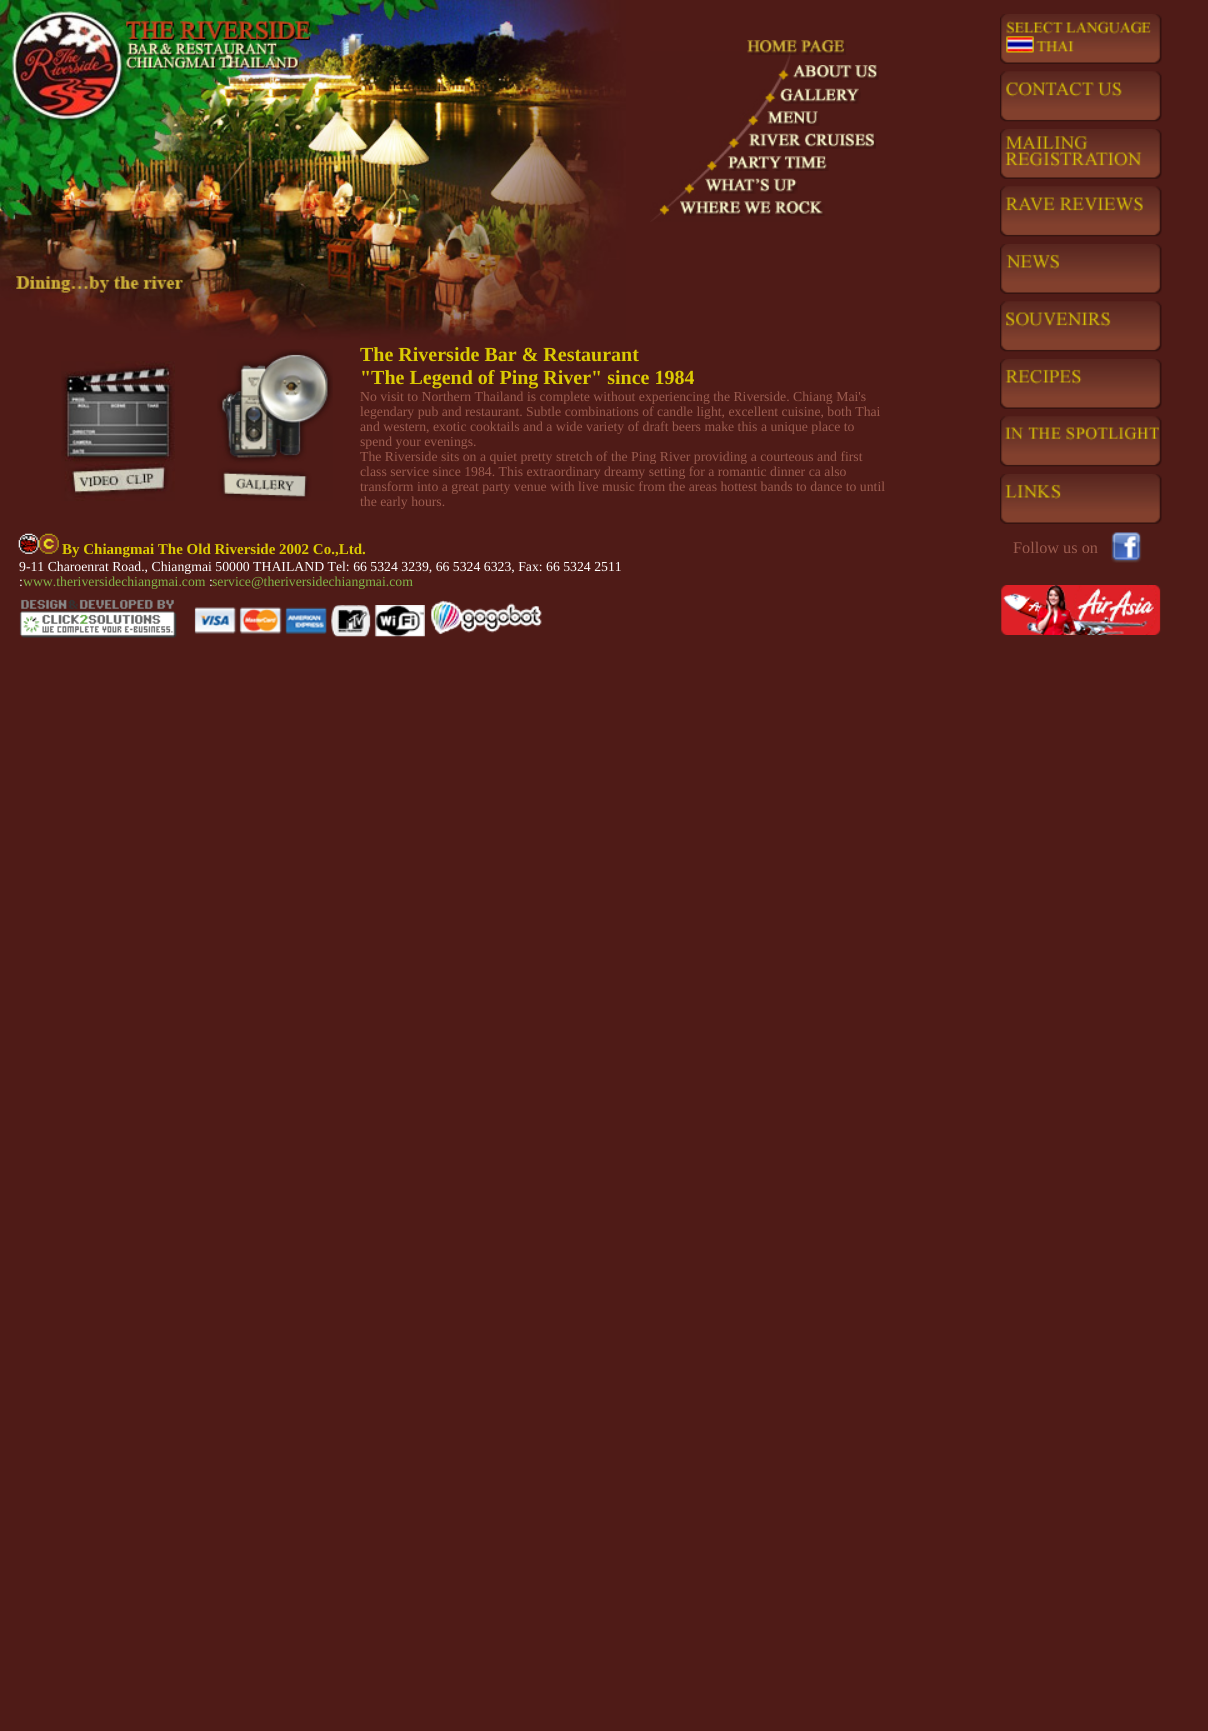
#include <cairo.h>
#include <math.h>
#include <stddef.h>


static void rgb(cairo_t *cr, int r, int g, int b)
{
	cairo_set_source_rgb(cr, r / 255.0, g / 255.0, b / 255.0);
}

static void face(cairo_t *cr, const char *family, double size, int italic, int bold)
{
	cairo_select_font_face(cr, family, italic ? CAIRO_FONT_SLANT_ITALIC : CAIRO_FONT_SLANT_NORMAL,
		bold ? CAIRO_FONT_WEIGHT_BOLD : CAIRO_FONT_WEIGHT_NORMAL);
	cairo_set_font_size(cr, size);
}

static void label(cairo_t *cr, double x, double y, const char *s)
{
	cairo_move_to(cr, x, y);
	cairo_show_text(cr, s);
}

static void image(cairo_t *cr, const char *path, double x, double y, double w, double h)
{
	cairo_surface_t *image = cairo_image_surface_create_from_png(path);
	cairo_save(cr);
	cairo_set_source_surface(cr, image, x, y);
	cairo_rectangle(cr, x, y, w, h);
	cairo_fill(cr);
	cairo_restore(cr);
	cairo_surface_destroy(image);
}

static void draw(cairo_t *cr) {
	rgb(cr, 79, 27, 23);
	cairo_paint(cr);
	image(cr, "image0.png", 0, 0, 626, 340);
	image(cr, "image1.png", 650, 51, 141, 171);
	image(cr, "image2.png", 747, 40, 99, 15);
	image(cr, "image3.png", 792, 65, 87, 15);
	image(cr, "image4.png", 780, 88, 81, 16);
	image(cr, "image5.png", 767, 111, 53, 15);
	image(cr, "image6.png", 748, 133, 128, 16);
	image(cr, "image7.png", 727, 156, 102, 15);
	image(cr, "image8.png", 705, 178, 93, 16);
	image(cr, "image9.png", 680, 201, 145, 15);
	image(cr, "image10.png", 61, 361, 114, 140);
	image(cr, "image11.png", 217, 349, 116, 152);
	face(cr, "Liberation Serif", 20, 0, 1);
	rgb(cr, 220, 202, 2);
	label(cr, 360, 361, "The Riverside Bar & Restaurant");
	label(cr, 360, 384, "\"The Legend of Ping River\" since 1984");
	face(cr, "Liberation Serif", 13.75, 0, 0);
	rgb(cr, 155, 91, 78);
	label(cr, 360, 401, "No visit to Northern Thailand is complete without experiencing the Riverside. Chiang Mai's");
	label(cr, 360, 416, "legendary pub and restaurant. Subtle combinations of candle light, excellent cuisine, both Thai");
	label(cr, 360, 431, "and western, exotic cooktails and a wide variety of draft beers make this a unique place to");
	label(cr, 360, 446, "spend your evenings.");
	label(cr, 360, 461, "The Riverside sits on a quiet pretty stretch of the Ping River providing a courteous and first");
	label(cr, 360, 476, "class service since 1984. This extraordinary dreamy setting for a romantic dinner ca also");
	label(cr, 360, 491, "transform into a great party venue with live music from the areas hottest bands to dance to until");
	label(cr, 360, 506, "the early hours.");
	image(cr, "image12.png", 18, 533, 21, 21);
	image(cr, "image13.png", 38, 533, 21, 21);
	face(cr, "Liberation Serif", 15, 0, 1);
	rgb(cr, 220, 202, 2);
	label(cr, 62, 554, "By Chiangmai The Old Riverside 2002 Co.,Ltd.");
	face(cr, "Liberation Serif", 13.75, 0, 0);
	rgb(cr, 255, 255, 255);
	label(cr, 19, 571, "9-11 Charoenrat Road., Chiangmai 50000 THAILAND Tel: 66 5324 3239, 66 5324 6323, Fax: 66 5324 2511");
	label(cr, 19, 586, ":");
	rgb(cr, 130, 181, 72);
	label(cr, 23, 586, "www.theriversidechiangmai.com");
	rgb(cr, 255, 255, 255);
	label(cr, 209, 586, ":");
	rgb(cr, 130, 181, 72);
	label(cr, 212, 586, "service@theriversidechiangmai.com");
	image(cr, "image14.png", 19, 599, 158, 39);
	image(cr, "image15.png", 194, 605, 231, 32);
	image(cr, "image16.png", 430, 600, 112, 35);
	image(cr, "image17.png", 1000, 14, 162, 50);
	image(cr, "image18.png", 1000, 71, 162, 51);
	image(cr, "image19.png", 1000, 129, 162, 50);
	image(cr, "image20.png", 1000, 186, 162, 51);
	image(cr, "image21.png", 1000, 244, 162, 50);
	image(cr, "image22.png", 1000, 301, 162, 51);
	image(cr, "image23.png", 1000, 359, 162, 50);
	image(cr, "image24.png", 1000, 416, 162, 51);
	image(cr, "image25.png", 1000, 474, 162, 50);
	face(cr, "Liberation Serif", 16.25, 0, 0);
	rgb(cr, 155, 91, 78);
	label(cr, 1013, 553, "Follow us on");
	image(cr, "image26.png", 1111, 532, 31, 31);
	image(cr, "image27.png", 1001, 585, 160, 50);
}

int main(void) {
	cairo_surface_t *surface = cairo_image_surface_create(CAIRO_FORMAT_RGB24, 1208, 1731);
	cairo_t *cr = cairo_create(surface);
	cairo_font_options_t *options = cairo_font_options_create();
	cairo_font_options_set_hint_metrics(options, CAIRO_HINT_METRICS_OFF);
	cairo_font_options_set_hint_style(options, CAIRO_HINT_STYLE_NONE);
	cairo_set_font_options(cr, options);
	cairo_set_miter_limit(cr, 4);
	draw(cr);
	cairo_surface_write_to_png(surface, "render.png");
	cairo_font_options_destroy(options);
	cairo_destroy(cr);
	cairo_surface_destroy(surface);
	return 0;
}
